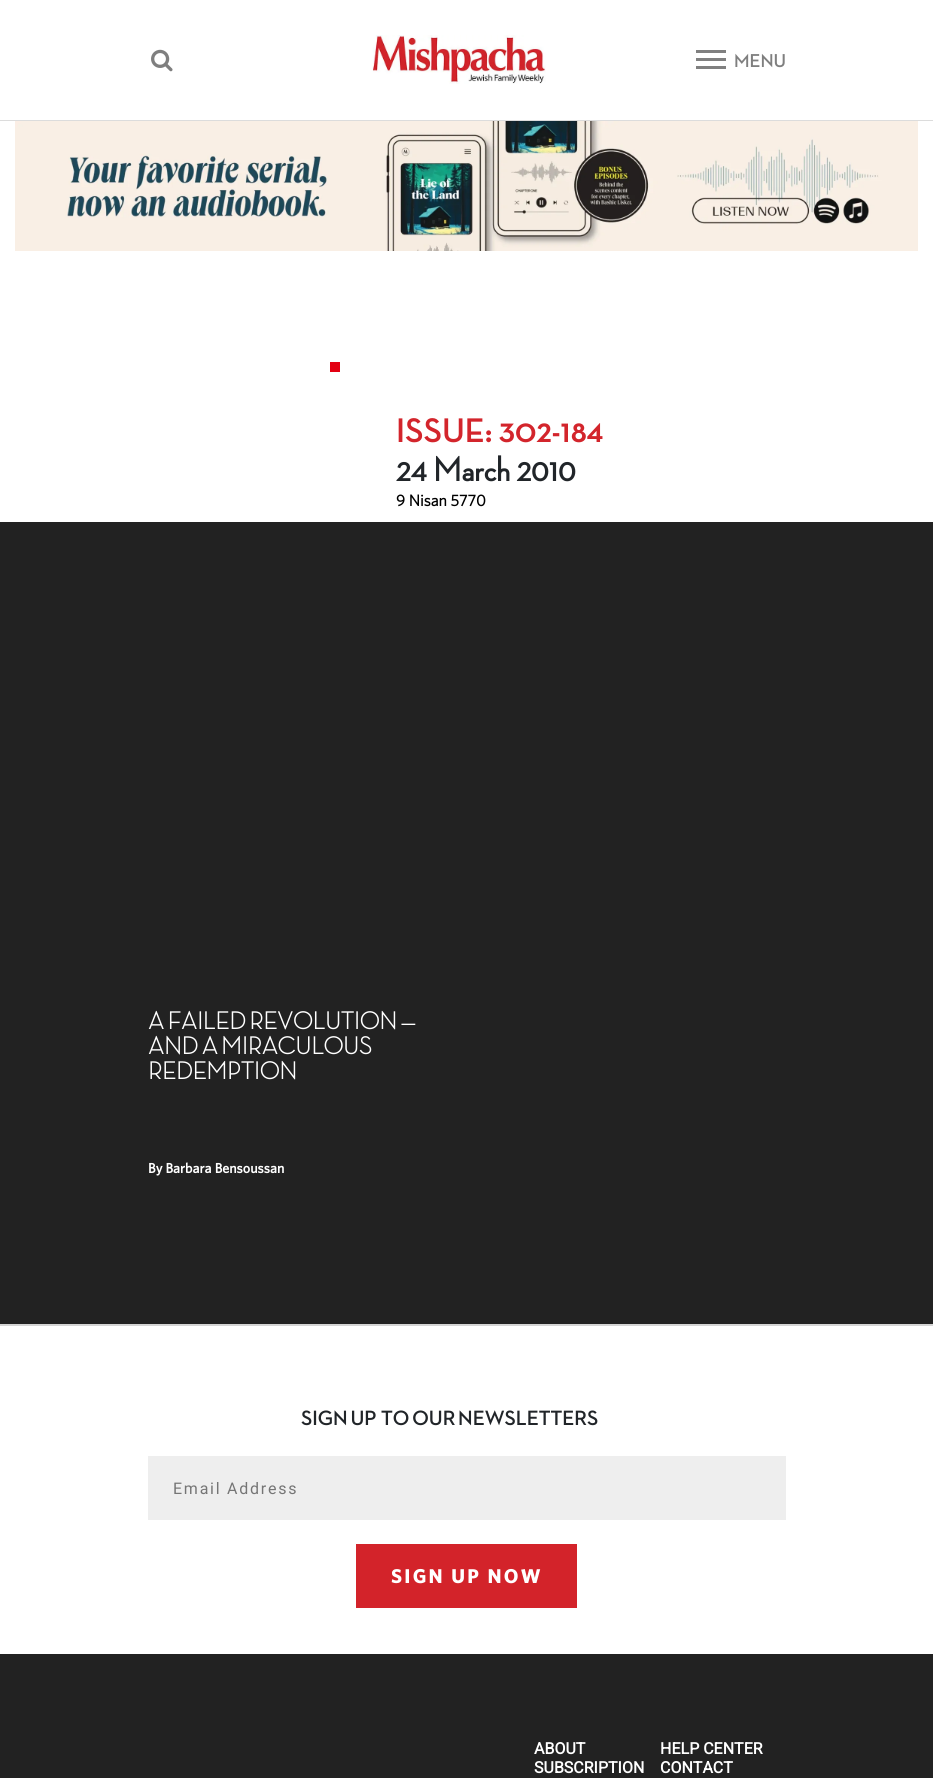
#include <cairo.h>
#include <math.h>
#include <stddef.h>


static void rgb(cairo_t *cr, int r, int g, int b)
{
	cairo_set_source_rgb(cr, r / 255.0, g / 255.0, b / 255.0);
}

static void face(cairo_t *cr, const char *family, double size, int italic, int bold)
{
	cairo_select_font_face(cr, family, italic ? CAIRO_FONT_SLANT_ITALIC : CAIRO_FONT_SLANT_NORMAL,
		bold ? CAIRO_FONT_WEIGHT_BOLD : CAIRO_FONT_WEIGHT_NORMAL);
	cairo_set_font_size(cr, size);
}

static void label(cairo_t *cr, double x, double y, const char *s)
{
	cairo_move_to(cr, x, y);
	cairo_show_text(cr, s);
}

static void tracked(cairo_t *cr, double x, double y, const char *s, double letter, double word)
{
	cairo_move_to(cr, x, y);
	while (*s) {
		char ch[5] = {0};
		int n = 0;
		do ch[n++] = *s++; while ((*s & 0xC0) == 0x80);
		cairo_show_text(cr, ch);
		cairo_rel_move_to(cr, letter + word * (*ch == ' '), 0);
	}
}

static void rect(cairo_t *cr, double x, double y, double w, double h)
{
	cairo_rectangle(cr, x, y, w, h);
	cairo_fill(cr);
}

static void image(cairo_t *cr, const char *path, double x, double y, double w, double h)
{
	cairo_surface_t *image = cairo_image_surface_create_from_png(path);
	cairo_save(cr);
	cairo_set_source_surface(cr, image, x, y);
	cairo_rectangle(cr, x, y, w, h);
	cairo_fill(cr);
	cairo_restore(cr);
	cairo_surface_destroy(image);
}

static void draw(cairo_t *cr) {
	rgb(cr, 255, 255, 255);
	cairo_paint(cr);
	rgb(cr, 220, 220, 220);
	rect(cr, 0, 120, 933, 1);
	image(cr, "image0.png", 151, 49, 22, 23);
	image(cr, "image1.png", 372, 35, 174, 49);
	rgb(cr, 128, 128, 128);
	rect(cr, 696, 58, 30, 3);
	rect(cr, 696, 50, 30, 3);
	rect(cr, 696, 66, 30, 3);
	face(cr, "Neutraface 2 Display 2", 19, 0, 1);
	rgb(cr, 127, 127, 127);
	label(cr, 734, 67, "MENU");
	image(cr, "image2.png", 15, 121, 903, 130);
	rgb(cr, 227, 0, 18);
	rect(cr, 330, 362, 10, 10);
	face(cr, "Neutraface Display", 34.75, 0, 1);
	rgb(cr, 211, 37, 44);
	label(cr, 396, 442, "ISSUE: 302-184");
	face(cr, "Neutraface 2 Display", 34.75, 0, 1);
	rgb(cr, 33, 37, 41);
	label(cr, 396, 481, "24 March 2010");
	face(cr, "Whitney", 16, 0, 1);
	rgb(cr, 0, 0, 0);
	label(cr, 396, 506, "9 Nisan 5770");
	rgb(cr, 34, 34, 34);
	rect(cr, 0, 522, 933, 802);
	face(cr, "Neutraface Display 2", 25, 0, 1);
	rgb(cr, 255, 255, 255);
	tracked(cr, 148, 1029, "A FAILED REVOLUTION —", 0, -1);
	tracked(cr, 148, 1054, "AND A MIRACULOUS", 0, -1);
	label(cr, 148, 1079, "REDEMPTION");
	face(cr, "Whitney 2", 14, 0, 1);
	label(cr, 148, 1173, "By Barbara Bensoussan");
	rgb(cr, 212, 212, 212);
	rect(cr, 0, 1324, 933, 2);
	face(cr, "Neutraface 2 Display 2", 21.1, 0, 1);
	rgb(cr, 33, 37, 41);
	tracked(cr, 301, 1425, "SIGN UP", 0, -1);
	tracked(cr, 381, 1425, "TO OUR NEWSLETTERS", 0, -1);
	rgb(cr, 238, 238, 238);
	rect(cr, 148, 1456, 638, 64);
	face(cr, "Roboto", 16, 0, 0);
	rgb(cr, 117, 117, 117);
	tracked(cr, 173, 1494, "Email Address", 1.75, 0);
	rgb(cr, 211, 35, 42);
	rect(cr, 356, 1544, 221, 64);
	face(cr, "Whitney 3", 20, 0, 1);
	rgb(cr, 255, 255, 255);
	tracked(cr, 391, 1583, "SIGN UP NOW", 2.25, 0);
	rgb(cr, 34, 34, 34);
	rect(cr, 0, 1654, 933, 124);
	face(cr, "Roboto", 16, 0, 1);
	rgb(cr, 255, 255, 255);
	label(cr, 534, 1754, "ABOUT");
	label(cr, 660, 1754, "HELP CENTER");
	label(cr, 534, 1773, "SUBSCRIPTION");
	label(cr, 660, 1773, "CONTACT");
}

int main(void) {
	cairo_surface_t *surface = cairo_image_surface_create(CAIRO_FORMAT_RGB24, 933, 1778);
	cairo_t *cr = cairo_create(surface);
	cairo_font_options_t *options = cairo_font_options_create();
	cairo_font_options_set_hint_metrics(options, CAIRO_HINT_METRICS_OFF);
	cairo_font_options_set_hint_style(options, CAIRO_HINT_STYLE_NONE);
	cairo_set_font_options(cr, options);
	cairo_set_miter_limit(cr, 4);
	draw(cr);
	cairo_surface_write_to_png(surface, "render.png");
	cairo_font_options_destroy(options);
	cairo_destroy(cr);
	cairo_surface_destroy(surface);
	return 0;
}
